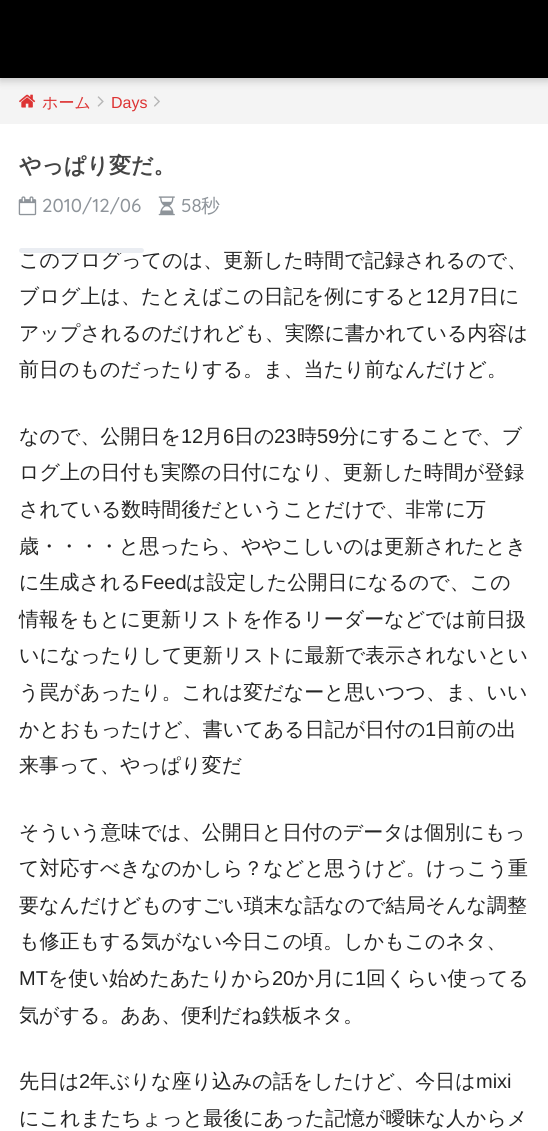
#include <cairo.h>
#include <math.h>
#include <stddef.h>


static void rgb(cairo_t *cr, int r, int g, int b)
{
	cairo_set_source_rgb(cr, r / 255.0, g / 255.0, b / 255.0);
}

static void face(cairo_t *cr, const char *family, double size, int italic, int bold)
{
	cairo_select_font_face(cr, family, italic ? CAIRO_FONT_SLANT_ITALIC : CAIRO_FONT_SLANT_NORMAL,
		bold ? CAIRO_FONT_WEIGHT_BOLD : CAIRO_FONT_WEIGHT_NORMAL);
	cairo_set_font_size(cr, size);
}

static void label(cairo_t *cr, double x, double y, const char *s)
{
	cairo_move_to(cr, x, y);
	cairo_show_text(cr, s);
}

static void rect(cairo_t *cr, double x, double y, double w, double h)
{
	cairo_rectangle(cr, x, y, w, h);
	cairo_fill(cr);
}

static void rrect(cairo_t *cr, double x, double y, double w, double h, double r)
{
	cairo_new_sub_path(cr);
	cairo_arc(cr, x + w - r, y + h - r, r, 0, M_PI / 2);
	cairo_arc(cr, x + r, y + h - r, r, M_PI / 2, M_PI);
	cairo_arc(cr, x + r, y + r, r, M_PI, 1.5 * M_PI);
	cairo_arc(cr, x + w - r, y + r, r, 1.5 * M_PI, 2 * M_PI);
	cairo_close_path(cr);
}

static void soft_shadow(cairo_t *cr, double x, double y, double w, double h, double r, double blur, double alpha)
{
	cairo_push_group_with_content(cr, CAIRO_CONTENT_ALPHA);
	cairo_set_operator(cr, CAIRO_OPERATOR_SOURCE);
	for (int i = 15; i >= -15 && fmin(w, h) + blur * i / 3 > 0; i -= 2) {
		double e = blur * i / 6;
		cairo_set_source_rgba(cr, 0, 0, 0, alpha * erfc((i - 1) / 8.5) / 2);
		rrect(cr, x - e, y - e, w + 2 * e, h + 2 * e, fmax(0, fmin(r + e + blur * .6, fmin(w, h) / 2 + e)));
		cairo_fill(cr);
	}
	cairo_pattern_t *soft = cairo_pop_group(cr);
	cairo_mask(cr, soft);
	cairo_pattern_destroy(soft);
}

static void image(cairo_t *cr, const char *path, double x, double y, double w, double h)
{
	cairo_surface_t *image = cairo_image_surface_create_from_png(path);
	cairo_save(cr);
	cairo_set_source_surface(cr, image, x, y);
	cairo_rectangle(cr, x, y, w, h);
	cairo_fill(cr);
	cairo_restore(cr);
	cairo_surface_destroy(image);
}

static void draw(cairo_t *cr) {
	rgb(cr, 255, 255, 255);
	cairo_paint(cr);
	rgb(cr, 244, 244, 244);
	rect(cr, 0, 78, 548, 46);
	rgb(cr, 0, 0, 0);
	soft_shadow(cr, 0, 4, 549, 77, 0, 4, 0.18);
	rgb(cr, 0, 0, 0);
	rect(cr, 0, 0, 548, 78);
	image(cr, "image0.png", 19, 94, 17, 14);
	face(cr, "WenQuanYi Zen Hei Medium", 16, 0, 0);
	rgb(cr, 221, 51, 51);
	label(cr, 42, 108, "ホーム");
	image(cr, "image1.png", 97, 96, 7, 11);
	face(cr, "Liberation Sans", 16, 0, 0);
	label(cr, 111, 108, "Days");
	image(cr, "image2.png", 154, 96, 6, 11);
	face(cr, "WenQuanYi Zen Hei", 22, 0, 1);
	rgb(cr, 68, 68, 68);
	label(cr, 19, 173, "やっぱり変だ。");
	image(cr, "image3.png", 18, 196, 19, 20);
	face(cr, "Quicksand Medium", 18.75, 0, 0);
	rgb(cr, 142, 148, 154);
	label(cr, 42, 212, "2010/12/06");
	image(cr, "image4.png", 158, 196, 17, 20);
	label(cr, 181, 212, "58");
	face(cr, "WenQuanYi Zen Hei Medium", 18.75, 0, 0);
	label(cr, 201, 212, "秒");
	face(cr, "WenQuanYi Zen Hei Medium", 20, 0, 0);
	rgb(cr, 37, 37, 37);
	label(cr, 19, 267, "このブログってのは、更新した時間で記録されるので、");
	rgb(cr, 234, 237, 242);
	rrect(cr, 19, 248, 125, 5, 2.5);
	cairo_fill(cr);
	rgb(cr, 37, 37, 37);
	label(cr, 19, 303, "ブログ上は、たとえばこの日記を例にすると");
	face(cr, "Liberation Sans", 20, 0, 0);
	label(cr, 426, 303, "12");
	face(cr, "WenQuanYi Zen Hei Medium", 20, 0, 0);
	label(cr, 448, 303, "月");
	face(cr, "Liberation Sans", 20, 0, 0);
	label(cr, 468, 303, "7");
	face(cr, "WenQuanYi Zen Hei Medium", 20, 0, 0);
	label(cr, 479, 303, "日に");
	label(cr, 19, 340, "アップされるのだけれども、実際に書かれている内容は");
	label(cr, 19, 376, "前日のものだったりする。ま、当たり前なんだけど。");
	label(cr, 19, 443, "なので、公開日を");
	face(cr, "Liberation Sans", 20, 0, 0);
	label(cr, 181, 443, "12");
	face(cr, "WenQuanYi Zen Hei Medium", 20, 0, 0);
	label(cr, 203, 443, "月");
	face(cr, "Liberation Sans", 20, 0, 0);
	label(cr, 223, 443, "6");
	face(cr, "WenQuanYi Zen Hei Medium", 20, 0, 0);
	label(cr, 234, 443, "日の");
	face(cr, "Liberation Sans", 20, 0, 0);
	label(cr, 274, 443, "23");
	face(cr, "WenQuanYi Zen Hei Medium", 20, 0, 0);
	label(cr, 297, 443, "時");
	face(cr, "Liberation Sans", 20, 0, 0);
	label(cr, 317, 443, "59");
	face(cr, "WenQuanYi Zen Hei Medium", 20, 0, 0);
	label(cr, 339, 443, "分にすることで、ブ");
	label(cr, 19, 479, "ログ上の日付も実際の日付になり、更新した時間が登録");
	label(cr, 19, 516, "されている数時間後だということだけで、非常に万");
	label(cr, 19, 553, "歳・・・・と思ったら、ややこしいのは更新されたとき");
	label(cr, 19, 589, "に生成される");
	face(cr, "Liberation Sans", 20, 0, 0);
	label(cr, 141, 589, "Feed");
	face(cr, "WenQuanYi Zen Hei Medium", 20, 0, 0);
	label(cr, 186, 589, "は設定した公開日になるので、この");
	label(cr, 19, 626, "情報をもとに更新リストを作るリーダーなどでは前日扱");
	label(cr, 19, 662, "いになったりして更新リストに最新で表示されないとい");
	label(cr, 19, 699, "う罠があったり。これは変だなーと思いつつ、ま、いい");
	label(cr, 19, 736, "かとおもったけど、書いてある日記が日付の");
	face(cr, "Liberation Sans", 20, 0, 0);
	label(cr, 425, 736, "1");
	face(cr, "WenQuanYi Zen Hei Medium", 20, 0, 0);
	label(cr, 436, 736, "日前の出");
	label(cr, 19, 772, "来事って、やっぱり変だ");
	label(cr, 19, 839, "そういう意味では、公開日と日付のデータは個別にもっ");
	label(cr, 19, 875, "て対応すべきなのかしら？などと思うけど。けっこう重");
	label(cr, 19, 912, "要なんだけどものすごい瑣末な話なので結局そんな調整");
	label(cr, 19, 948, "も修正もする気がない今日この頃。しかもこのネタ、");
	face(cr, "Liberation Sans", 20, 0, 0);
	label(cr, 19, 985, "MT");
	face(cr, "WenQuanYi Zen Hei Medium", 20, 0, 0);
	label(cr, 48, 985, "を使い始めたあたりから");
	face(cr, "Liberation Sans", 20, 0, 0);
	label(cr, 272, 985, "20");
	face(cr, "WenQuanYi Zen Hei Medium", 20, 0, 0);
	label(cr, 294, 985, "か月に");
	face(cr, "Liberation Sans", 20, 0, 0);
	label(cr, 355, 985, "1");
	face(cr, "WenQuanYi Zen Hei Medium", 20, 0, 0);
	label(cr, 366, 985, "回くらい使ってる");
	label(cr, 19, 1022, "気がする。ああ、便利だね鉄板ネタ。");
	label(cr, 19, 1088, "先日は");
	face(cr, "Liberation Sans", 20, 0, 0);
	label(cr, 79, 1088, "2");
	face(cr, "WenQuanYi Zen Hei Medium", 20, 0, 0);
	label(cr, 90, 1088, "年ぶりな座り込みの話をしたけど、今日は");
	face(cr, "Liberation Sans", 20, 0, 0);
	label(cr, 476, 1088, "mixi");
	face(cr, "WenQuanYi Zen Hei Medium", 20, 0, 0);
	label(cr, 19, 1125, "にこれまたちょっと最後にあった記憶が曖昧な人からメ");
}

int main(void) {
	cairo_surface_t *surface = cairo_image_surface_create(CAIRO_FORMAT_RGB24, 548, 1131);
	cairo_t *cr = cairo_create(surface);
	cairo_font_options_t *options = cairo_font_options_create();
	cairo_font_options_set_hint_metrics(options, CAIRO_HINT_METRICS_OFF);
	cairo_font_options_set_hint_style(options, CAIRO_HINT_STYLE_NONE);
	cairo_set_font_options(cr, options);
	cairo_set_miter_limit(cr, 4);
	draw(cr);
	cairo_surface_write_to_png(surface, "render.png");
	cairo_font_options_destroy(options);
	cairo_destroy(cr);
	cairo_surface_destroy(surface);
	return 0;
}
